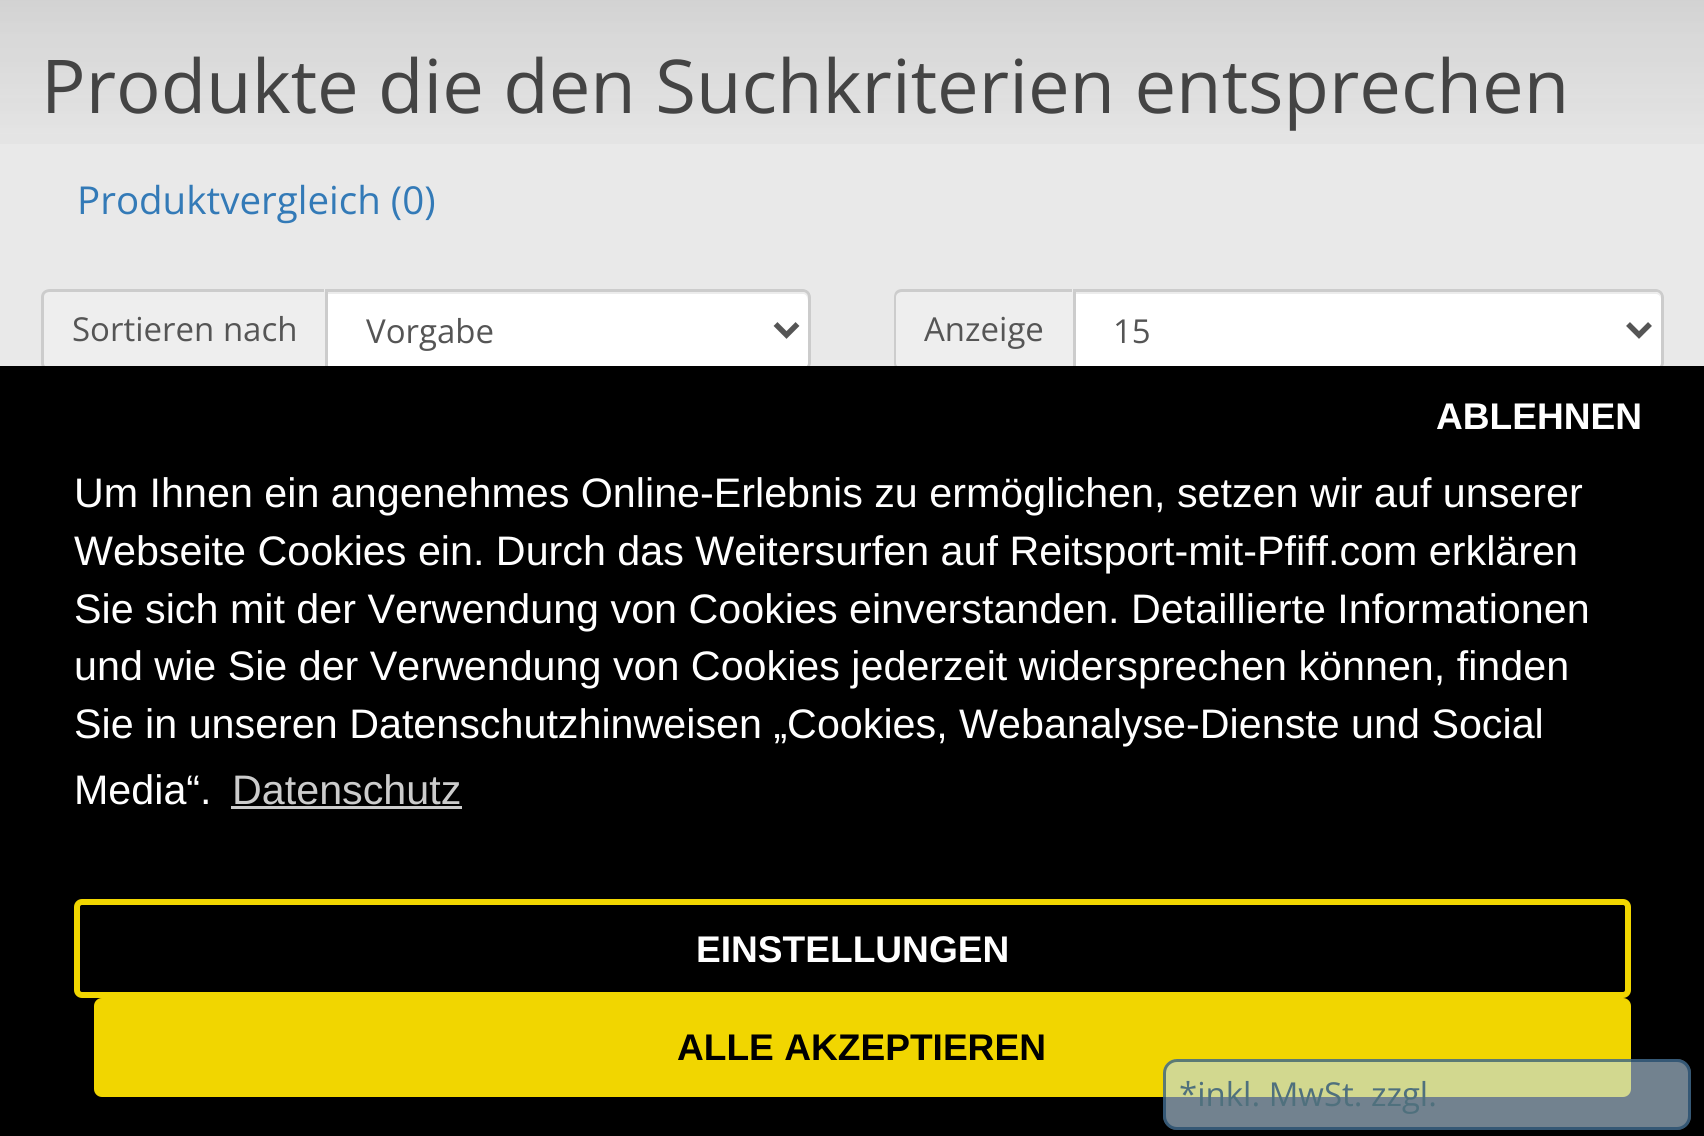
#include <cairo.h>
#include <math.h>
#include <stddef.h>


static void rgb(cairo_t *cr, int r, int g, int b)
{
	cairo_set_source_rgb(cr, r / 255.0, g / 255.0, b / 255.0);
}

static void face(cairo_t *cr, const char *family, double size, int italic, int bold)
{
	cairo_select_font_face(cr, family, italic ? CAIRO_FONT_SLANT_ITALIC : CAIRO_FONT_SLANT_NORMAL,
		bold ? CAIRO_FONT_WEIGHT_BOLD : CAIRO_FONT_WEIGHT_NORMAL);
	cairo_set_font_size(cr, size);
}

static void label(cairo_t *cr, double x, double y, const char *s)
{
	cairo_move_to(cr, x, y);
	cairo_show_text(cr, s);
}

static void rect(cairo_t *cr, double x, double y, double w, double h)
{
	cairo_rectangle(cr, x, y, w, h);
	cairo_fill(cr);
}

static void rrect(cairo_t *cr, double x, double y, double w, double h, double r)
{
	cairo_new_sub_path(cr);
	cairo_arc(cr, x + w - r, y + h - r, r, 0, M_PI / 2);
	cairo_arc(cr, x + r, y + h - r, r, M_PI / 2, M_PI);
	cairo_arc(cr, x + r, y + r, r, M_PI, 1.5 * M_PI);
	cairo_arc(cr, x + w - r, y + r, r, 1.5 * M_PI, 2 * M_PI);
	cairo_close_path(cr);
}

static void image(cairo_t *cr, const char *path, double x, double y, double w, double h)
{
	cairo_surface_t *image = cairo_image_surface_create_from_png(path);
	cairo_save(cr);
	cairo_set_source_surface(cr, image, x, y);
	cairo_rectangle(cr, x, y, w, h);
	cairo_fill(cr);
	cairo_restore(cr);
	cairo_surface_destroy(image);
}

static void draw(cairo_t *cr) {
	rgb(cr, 233, 233, 233);
	cairo_paint(cr);
	image(cr, "image0.png", 0, 0, 1704, 144);
	face(cr, "Open Sans", 74.25, 0, 0);
	rgb(cr, 68, 68, 68);
	label(cr, 41, 113, "Produkte die den Suchkriterien entsprechen");
	face(cr, "Open Sans", 38.5, 0, 0);
	rgb(cr, 51, 122, 183);
	label(cr, 77, 214, "Produktvergleich (0)");
	rgb(cr, 238, 238, 238);
	cairo_new_path(cr);
	cairo_move_to(cr, 49, 289);
	cairo_line_to(cr, 325, 289);
	cairo_line_to(cr, 325, 371);
	cairo_line_to(cr, 49, 371);
	cairo_curve_to(cr, 44.5, 371, 41, 367.5, 41, 363);
	cairo_line_to(cr, 41, 297);
	cairo_curve_to(cr, 41, 292.5, 44.5, 289, 49, 289);
	cairo_close_path(cr);
	cairo_fill(cr);
	rgb(cr, 204, 204, 204);
	cairo_set_fill_rule(cr, CAIRO_FILL_RULE_EVEN_ODD);
	cairo_new_path(cr);
	cairo_move_to(cr, 50, 289);
	cairo_line_to(cr, 324, 289);
	cairo_line_to(cr, 324, 371);
	cairo_line_to(cr, 50, 371);
	cairo_curve_to(cr, 45, 371, 41, 368, 41, 363);
	cairo_line_to(cr, 41, 297);
	cairo_curve_to(cr, 41, 292, 45, 289, 50, 289);
	cairo_close_path(cr);
	cairo_move_to(cr, 50, 292);
	cairo_line_to(cr, 324, 292);
	cairo_line_to(cr, 324, 368);
	cairo_line_to(cr, 50, 368);
	cairo_curve_to(cr, 46, 368, 44, 366, 44, 363);
	cairo_line_to(cr, 44, 297);
	cairo_curve_to(cr, 44, 294, 46, 292, 50, 292);
	cairo_close_path(cr);
	cairo_fill(cr);
	face(cr, "Open Sans", 33, 0, 0);
	rgb(cr, 85, 85, 85);
	label(cr, 72, 341, "Sortieren nach");
	rgb(cr, 255, 255, 255);
	cairo_new_path(cr);
	cairo_move_to(cr, 325, 289);
	cairo_line_to(cr, 803, 289);
	cairo_curve_to(cr, 807.5, 289, 811, 292.5, 811, 297);
	cairo_line_to(cr, 811, 363);
	cairo_curve_to(cr, 811, 367.5, 807.5, 371, 803, 371);
	cairo_line_to(cr, 325, 371);
	cairo_close_path(cr);
	cairo_fill(cr);
	rgb(cr, 236, 236, 236);
	cairo_set_fill_rule(cr, CAIRO_FILL_RULE_WINDING);
	cairo_new_path(cr);
	cairo_move_to(cr, 327, 294);
	cairo_line_to(cr, 803, 294);
	cairo_curve_to(cr, 810, 294, 808, 309, 808, 311);
	cairo_line_to(cr, 808, 366);
	cairo_curve_to(cr, 809, 365, 809, 364, 809, 363);
	cairo_line_to(cr, 809, 298);
	cairo_curve_to(cr, 809, 295, 806, 292, 803, 292);
	cairo_line_to(cr, 327, 292);
	cairo_close_path(cr);
	cairo_fill(cr);
	cairo_new_path(cr);
	cairo_move_to(cr, 326.5, 290.5);
	cairo_line_to(cr, 803, 290.5);
	cairo_curve_to(cr, 806.5, 290.5, 809.5, 293.5, 809.5, 297);
	cairo_line_to(cr, 809.5, 363);
	cairo_curve_to(cr, 809.5, 366.5, 806.5, 369.5, 803, 369.5);
	cairo_line_to(cr, 326.5, 369.5);
	cairo_close_path(cr);
	rgb(cr, 204, 204, 204);
	cairo_set_line_width(cr, 3);
	cairo_stroke(cr);
	cairo_new_path(cr);
	cairo_move_to(cr, 775.5, 324);
	cairo_line_to(cr, 786.5, 335);
	cairo_line_to(cr, 797.5, 324);
	rgb(cr, 85, 85, 85);
	cairo_set_line_width(cr, 5.5);
	cairo_stroke(cr);
	label(cr, 366, 343, "Vorgabe");
	rgb(cr, 238, 238, 238);
	cairo_new_path(cr);
	cairo_move_to(cr, 902, 289);
	cairo_line_to(cr, 1073, 289);
	cairo_line_to(cr, 1073, 371);
	cairo_line_to(cr, 902, 371);
	cairo_curve_to(cr, 897.5, 371, 894, 367.5, 894, 363);
	cairo_line_to(cr, 894, 297);
	cairo_curve_to(cr, 894, 292.5, 897.5, 289, 902, 289);
	cairo_close_path(cr);
	cairo_fill(cr);
	rgb(cr, 204, 204, 204);
	cairo_set_fill_rule(cr, CAIRO_FILL_RULE_EVEN_ODD);
	cairo_new_path(cr);
	cairo_move_to(cr, 902, 289);
	cairo_line_to(cr, 1072, 289);
	cairo_line_to(cr, 1072, 371);
	cairo_line_to(cr, 902, 371);
	cairo_curve_to(cr, 897, 371, 894, 368, 894, 363);
	cairo_line_to(cr, 894, 297);
	cairo_curve_to(cr, 894, 292, 897, 289, 902, 289);
	cairo_close_path(cr);
	cairo_move_to(cr, 902, 292);
	cairo_line_to(cr, 1072, 292);
	cairo_line_to(cr, 1072, 368);
	cairo_line_to(cr, 902, 368);
	cairo_curve_to(cr, 899, 368, 896, 366, 896, 363);
	cairo_line_to(cr, 896, 297);
	cairo_curve_to(cr, 896, 294, 899, 292, 902, 292);
	cairo_close_path(cr);
	cairo_fill(cr);
	rgb(cr, 85, 85, 85);
	label(cr, 924, 341, "Anzeige");
	rgb(cr, 255, 255, 255);
	cairo_new_path(cr);
	cairo_move_to(cr, 1073, 289);
	cairo_line_to(cr, 1656, 289);
	cairo_curve_to(cr, 1660.5, 289, 1664, 292.5, 1664, 297);
	cairo_line_to(cr, 1664, 363);
	cairo_curve_to(cr, 1664, 367.5, 1660.5, 371, 1656, 371);
	cairo_line_to(cr, 1073, 371);
	cairo_close_path(cr);
	cairo_fill(cr);
	rgb(cr, 236, 236, 236);
	cairo_set_fill_rule(cr, CAIRO_FILL_RULE_WINDING);
	cairo_new_path(cr);
	cairo_move_to(cr, 1075, 294);
	cairo_line_to(cr, 1656, 294);
	cairo_curve_to(cr, 1659, 294, 1661, 297, 1661, 300);
	cairo_curve_to(cr, 1661, 296, 1660, 292, 1655, 292);
	cairo_line_to(cr, 1075, 292);
	cairo_close_path(cr);
	cairo_fill(cr);
	cairo_new_path(cr);
	cairo_move_to(cr, 1074.5, 290.5);
	cairo_line_to(cr, 1656, 290.5);
	cairo_curve_to(cr, 1659.5, 290.5, 1662.5, 293.5, 1662.5, 297);
	cairo_line_to(cr, 1662.5, 363);
	cairo_curve_to(cr, 1662.5, 366.5, 1659.5, 369.5, 1656, 369.5);
	cairo_line_to(cr, 1074.5, 369.5);
	cairo_close_path(cr);
	rgb(cr, 204, 204, 204);
	cairo_set_line_width(cr, 3);
	cairo_stroke(cr);
	cairo_new_path(cr);
	cairo_move_to(cr, 1628, 324);
	cairo_line_to(cr, 1639, 335);
	cairo_line_to(cr, 1650, 324);
	rgb(cr, 85, 85, 85);
	cairo_set_line_width(cr, 5.5);
	cairo_stroke(cr);
	label(cr, 1113, 343, "15");
	rgb(cr, 0, 0, 0);
	rect(cr, 0, 366, 1704, 770);
	face(cr, "Liberation Sans", 37.1, 0, 1);
	rgb(cr, 255, 255, 255);
	label(cr, 1436, 429, "ABLEHNEN");
	rrect(cr, 77, 902, 1551, 93, 5);
	rgb(cr, 241, 214, 0);
	cairo_set_line_width(cr, 6);
	cairo_stroke(cr);
	rgb(cr, 255, 255, 255);
	label(cr, 696, 962, "EINSTELLUNGEN");
	rgb(cr, 241, 214, 0);
	rrect(cr, 94, 998, 1537, 99, 8);
	cairo_fill(cr);
	rgb(cr, 0, 0, 0);
	label(cr, 677, 1060, "ALLE AKZEPTIEREN");
	face(cr, "Liberation Sans", 41.25, 0, 0);
	rgb(cr, 255, 255, 255);
	label(cr, 74, 507, "Um Ihnen ein angenehmes Online-Erlebnis zu ermöglichen, setzen wir auf unserer");
	label(cr, 74, 565, "Webseite Cookies ein. Durch das Weitersurfen auf Reitsport-mit-Pfiff.com erklären");
	label(cr, 74, 623, "Sie sich mit der Verwendung von Cookies einverstanden. Detaillierte Informationen");
	label(cr, 74, 680, "und wie Sie der Verwendung von Cookies jederzeit widersprechen können, finden");
	label(cr, 74, 738, "Sie in unseren Datenschutzhinweisen „Cookies, Webanalyse-Dienste und Social");
	label(cr, 74, 804, "Media“.");
	rgb(cr, 204, 204, 204);
	label(cr, 232, 804, "Datenschutz");
	rect(cr, 231, 806, 231, 3);
	cairo_set_source_rgba(cr, 0.745, 0.847, 0.937, 0.6);
	rrect(cr, 1163, 1059, 528, 71, 14);
	cairo_fill(cr);
	rrect(cr, 1164.5, 1060.5, 525, 68, 12.5);
	cairo_set_source_rgba(cr, 0.047, 0.235, 0.396, 0.6);
	cairo_set_line_width(cr, 3);
	cairo_stroke(cr);
	face(cr, "Open Sans", 33, 0, 0);
	rgb(cr, 79, 112, 125);
	label(cr, 1179, 1106, "*inkl. MwSt. zzgl.");
}

int main(void) {
	cairo_surface_t *surface = cairo_image_surface_create(CAIRO_FORMAT_RGB24, 1704, 1136);
	cairo_t *cr = cairo_create(surface);
	cairo_font_options_t *options = cairo_font_options_create();
	cairo_font_options_set_hint_metrics(options, CAIRO_HINT_METRICS_OFF);
	cairo_font_options_set_hint_style(options, CAIRO_HINT_STYLE_NONE);
	cairo_set_font_options(cr, options);
	cairo_set_miter_limit(cr, 4);
	draw(cr);
	cairo_surface_write_to_png(surface, "render.png");
	cairo_font_options_destroy(options);
	cairo_destroy(cr);
	cairo_surface_destroy(surface);
	return 0;
}
